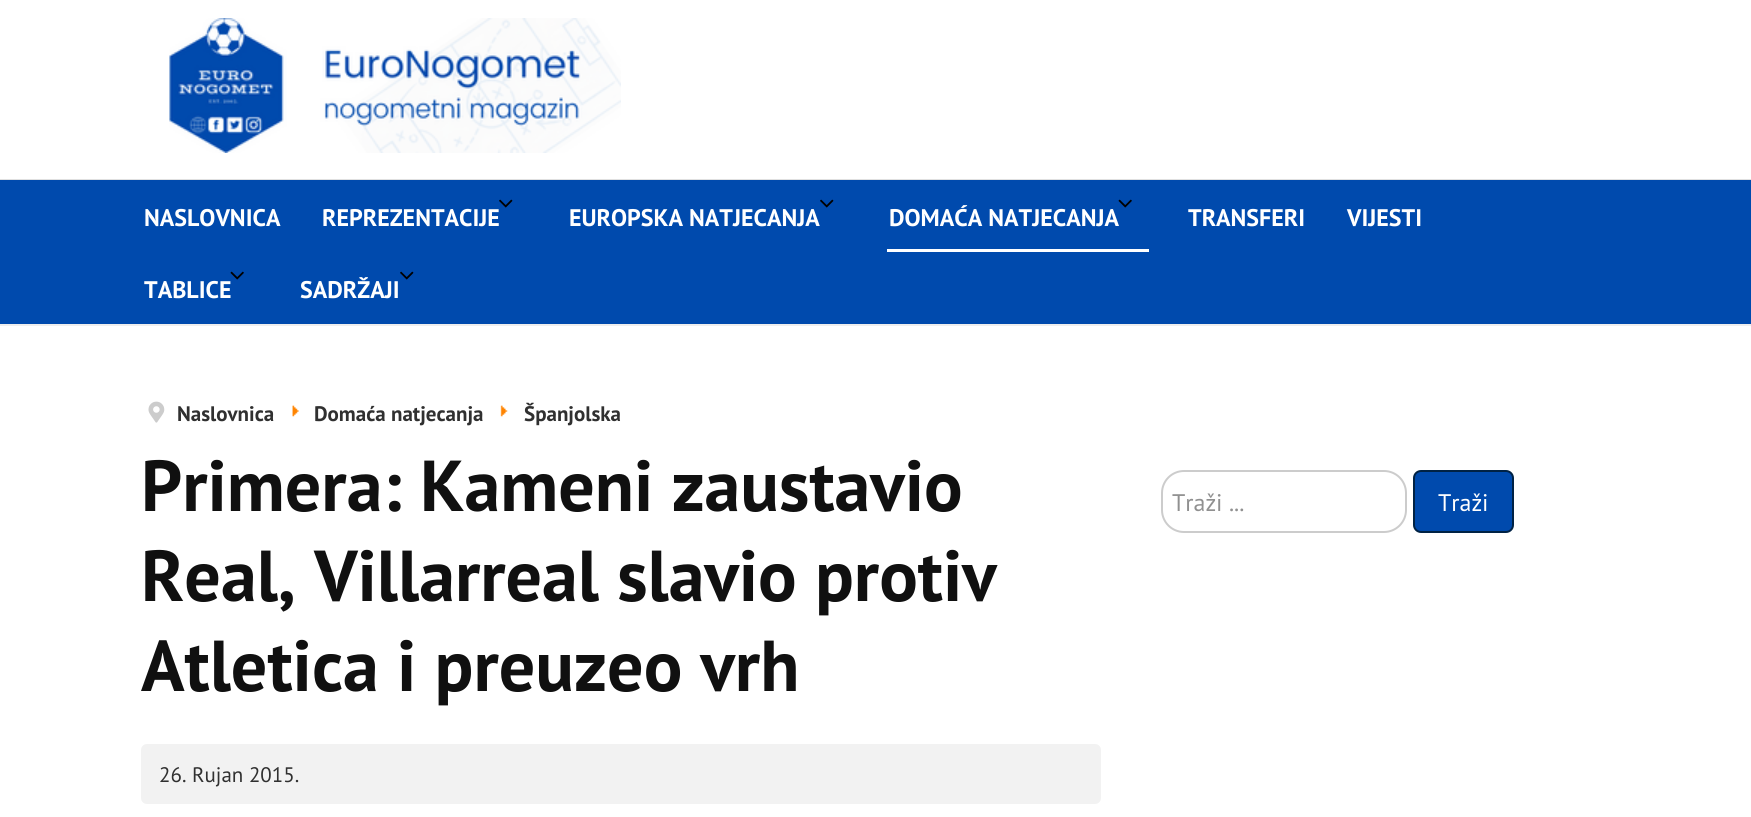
#include <cairo.h>
#include <math.h>
#include <stddef.h>


static void rgb(cairo_t *cr, int r, int g, int b)
{
	cairo_set_source_rgb(cr, r / 255.0, g / 255.0, b / 255.0);
}

static void face(cairo_t *cr, const char *family, double size, int italic, int bold)
{
	cairo_select_font_face(cr, family, italic ? CAIRO_FONT_SLANT_ITALIC : CAIRO_FONT_SLANT_NORMAL,
		bold ? CAIRO_FONT_WEIGHT_BOLD : CAIRO_FONT_WEIGHT_NORMAL);
	cairo_set_font_size(cr, size);
}

static void label(cairo_t *cr, double x, double y, const char *s)
{
	cairo_move_to(cr, x, y);
	cairo_show_text(cr, s);
}

static void rect(cairo_t *cr, double x, double y, double w, double h)
{
	cairo_rectangle(cr, x, y, w, h);
	cairo_fill(cr);
}

static void rrect(cairo_t *cr, double x, double y, double w, double h, double r)
{
	cairo_new_sub_path(cr);
	cairo_arc(cr, x + w - r, y + h - r, r, 0, M_PI / 2);
	cairo_arc(cr, x + r, y + h - r, r, M_PI / 2, M_PI);
	cairo_arc(cr, x + r, y + r, r, M_PI, 1.5 * M_PI);
	cairo_arc(cr, x + w - r, y + r, r, 1.5 * M_PI, 2 * M_PI);
	cairo_close_path(cr);
}

static void image(cairo_t *cr, const char *path, double x, double y, double w, double h)
{
	cairo_surface_t *image = cairo_image_surface_create_from_png(path);
	cairo_save(cr);
	cairo_set_source_surface(cr, image, x, y);
	cairo_rectangle(cr, x, y, w, h);
	cairo_fill(cr);
	cairo_restore(cr);
	cairo_surface_destroy(image);
}

static void draw(cairo_t *cr) {
	rgb(cr, 255, 255, 255);
	cairo_paint(cr);
	rgb(cr, 224, 224, 224);
	rect(cr, 0, 179, 1751, 1);
	image(cr, "image0.png", 169, 18, 452, 135);
	rgb(cr, 0, 74, 173);
	rect(cr, 0, 180, 1751, 144);
	rgb(cr, 238, 238, 238);
	rect(cr, 0, 324, 1751, 2);
	face(cr, "PT Sans", 24, 0, 1);
	rgb(cr, 255, 255, 255);
	label(cr, 144, 226, "NASLOVNICA");
	image(cr, "image1.png", 499, 199, 14, 9);
	label(cr, 322, 226, "REPREZENTACIJE");
	image(cr, "image1.png", 820, 199, 14, 9);
	label(cr, 569, 226, "EUROPSKA NATJECANJA");
	label(cr, 889, 226, "DOMAĆA NATJECANJA");
	image(cr, "image2.png", 1118, 199, 14, 9);
	rect(cr, 887, 249, 262, 3);
	label(cr, 1188, 226, "TRANSFERI");
	label(cr, 1347, 226, "VIJESTI");
	image(cr, "image2.png", 230, 271, 14, 9);
	label(cr, 144, 298, "TABLICE");
	image(cr, "image1.png", 400, 271, 14, 9);
	label(cr, 300, 298, "SADRŽAJI");
	image(cr, "image3.png", 148, 401, 17, 22);
	face(cr, "PT Sans", 21, 0, 1);
	rgb(cr, 48, 48, 48);
	label(cr, 177, 421, "Naslovnica");
	image(cr, "image4.png", 292, 405, 7, 12);
	label(cr, 314, 421, "Domaća natjecanja");
	image(cr, "image5.png", 500, 405, 8, 12);
	label(cr, 524, 421, "Španjolska");
	face(cr, "PT Sans", 72, 0, 1);
	rgb(cr, 16, 16, 16);
	label(cr, 141, 511, "Primera: Kameni zaustavio");
	label(cr, 141, 601, "Real, Villarreal slavio protiv");
	label(cr, 141, 691, "Atletica i preuzeo vrh");
	rgb(cr, 242, 242, 242);
	rrect(cr, 141, 744, 960, 60, 6);
	cairo_fill(cr);
	face(cr, "PT Sans", 21, 0, 0);
	rgb(cr, 48, 48, 48);
	label(cr, 159, 782, "26. Rujan 2015.");
	rrect(cr, 1162, 471, 244, 61, 22);
	rgb(cr, 204, 204, 204);
	cairo_stroke(cr);
	face(cr, "PT Sans", 24, 0, 0);
	rgb(cr, 144, 144, 144);
	label(cr, 1172, 511, "Traži ...");
	rgb(cr, 0, 74, 173);
	rrect(cr, 1414, 471, 99, 61, 7);
	cairo_fill_preserve(cr);
	rgb(cr, 0, 34, 68);
	cairo_stroke(cr);
	rgb(cr, 255, 255, 255);
	label(cr, 1438, 511, "Traži");
}

int main(void) {
	cairo_surface_t *surface = cairo_image_surface_create(CAIRO_FORMAT_RGB24, 1751, 817);
	cairo_t *cr = cairo_create(surface);
	cairo_font_options_t *options = cairo_font_options_create();
	cairo_font_options_set_hint_metrics(options, CAIRO_HINT_METRICS_OFF);
	cairo_font_options_set_hint_style(options, CAIRO_HINT_STYLE_NONE);
	cairo_set_font_options(cr, options);
	cairo_set_miter_limit(cr, 4);
	draw(cr);
	cairo_surface_write_to_png(surface, "render.png");
	cairo_font_options_destroy(options);
	cairo_destroy(cr);
	cairo_surface_destroy(surface);
	return 0;
}
